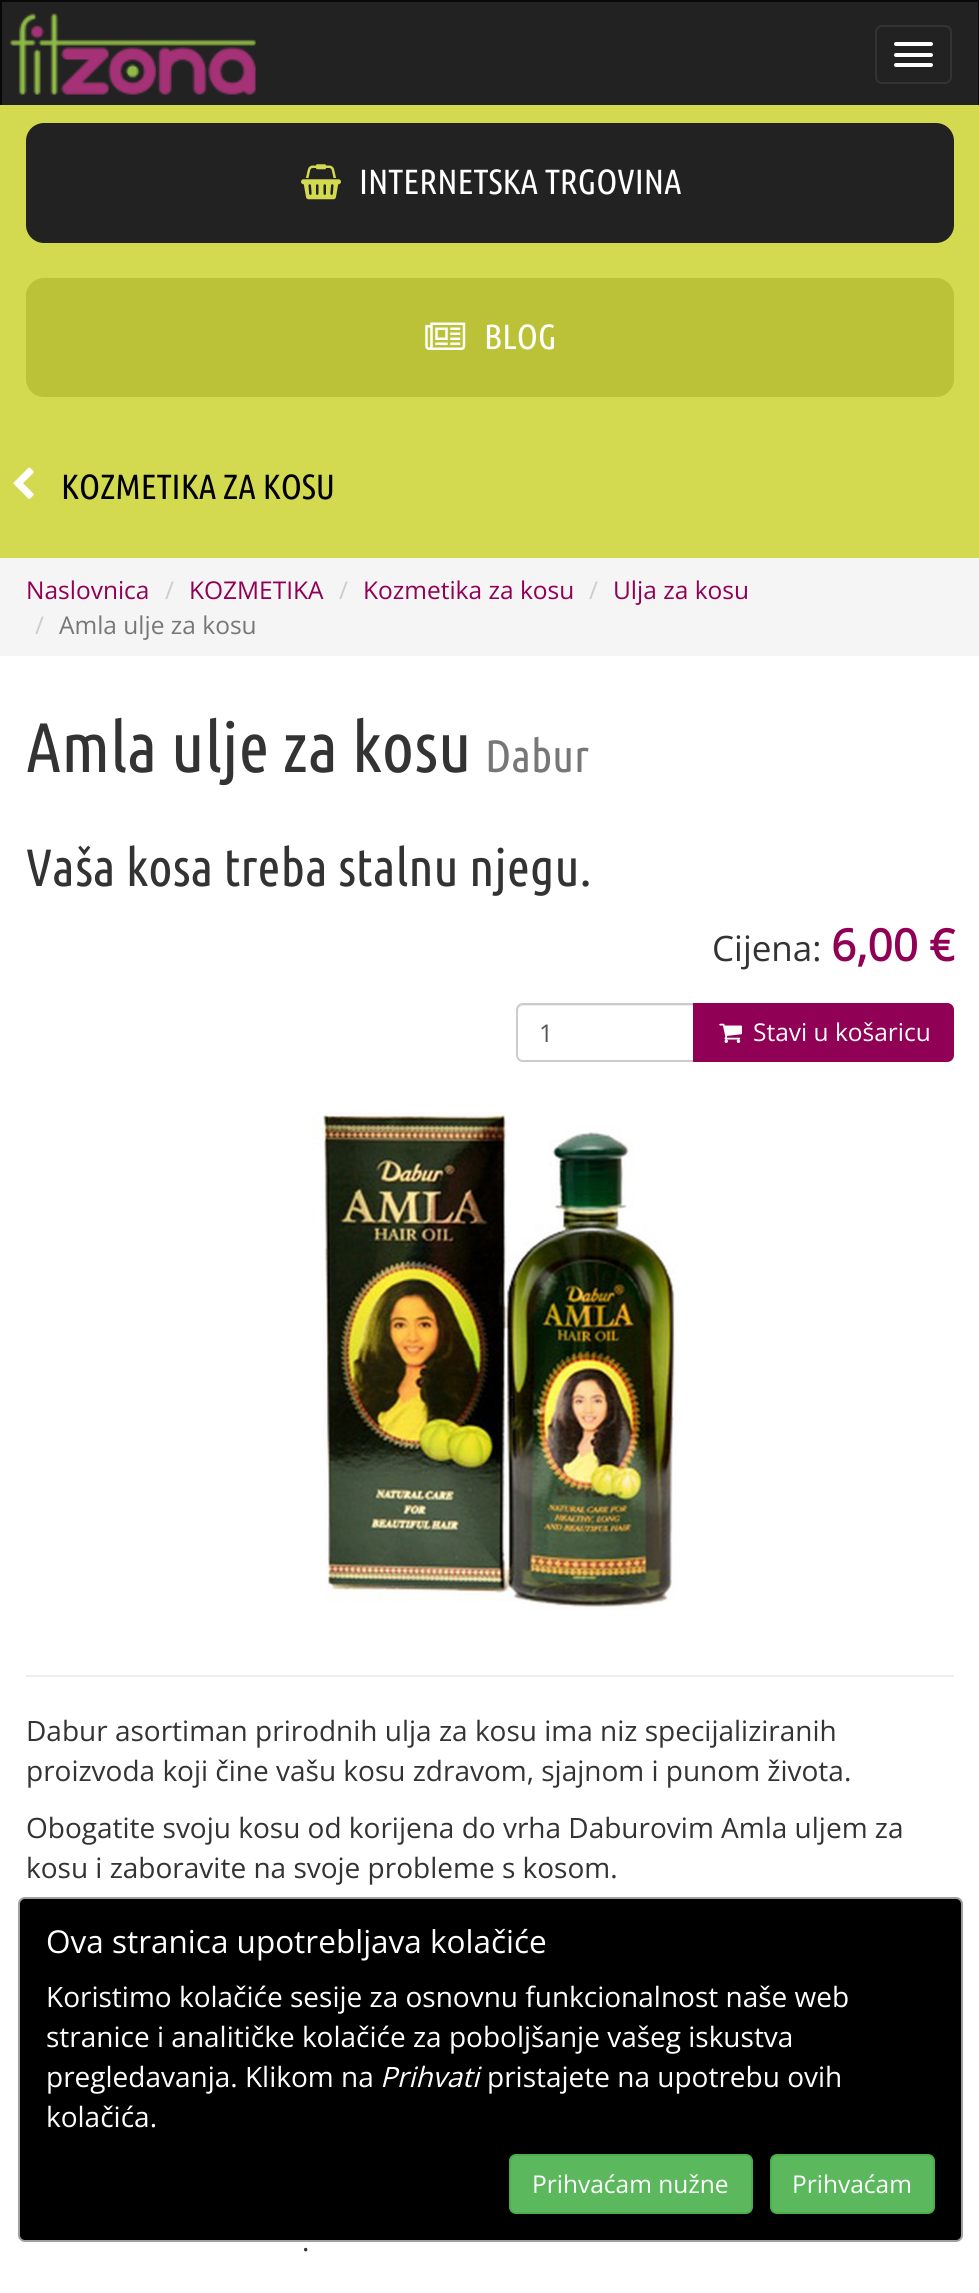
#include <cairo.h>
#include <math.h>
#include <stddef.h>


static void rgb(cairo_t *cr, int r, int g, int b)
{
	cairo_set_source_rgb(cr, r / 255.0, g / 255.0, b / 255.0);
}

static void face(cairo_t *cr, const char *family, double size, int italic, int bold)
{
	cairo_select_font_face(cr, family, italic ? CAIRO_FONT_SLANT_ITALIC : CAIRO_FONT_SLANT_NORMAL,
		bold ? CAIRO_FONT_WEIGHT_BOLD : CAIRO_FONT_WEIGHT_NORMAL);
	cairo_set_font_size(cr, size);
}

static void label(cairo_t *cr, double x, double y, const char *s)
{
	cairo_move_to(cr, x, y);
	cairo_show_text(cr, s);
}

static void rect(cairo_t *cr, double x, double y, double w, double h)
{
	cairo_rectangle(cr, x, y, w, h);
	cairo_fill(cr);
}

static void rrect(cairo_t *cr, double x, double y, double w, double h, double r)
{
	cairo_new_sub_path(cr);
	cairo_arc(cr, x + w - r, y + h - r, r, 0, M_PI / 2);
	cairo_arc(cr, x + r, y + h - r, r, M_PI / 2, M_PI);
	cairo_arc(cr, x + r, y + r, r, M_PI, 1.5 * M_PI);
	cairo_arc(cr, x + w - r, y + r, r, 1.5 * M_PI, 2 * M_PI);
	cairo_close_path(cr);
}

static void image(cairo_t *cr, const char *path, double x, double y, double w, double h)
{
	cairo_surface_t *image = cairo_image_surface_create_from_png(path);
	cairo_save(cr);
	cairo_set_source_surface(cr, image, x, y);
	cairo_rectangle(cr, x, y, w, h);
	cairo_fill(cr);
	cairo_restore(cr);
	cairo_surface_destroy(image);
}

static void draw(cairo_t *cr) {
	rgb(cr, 255, 255, 255);
	cairo_paint(cr);
	rgb(cr, 34, 34, 34);
	rect(cr, 2, 2, 976, 103);
	rgb(cr, 8, 8, 8);
	rect(cr, 0, 0, 979, 2);
	rect(cr, 978, 0, 1, 105);
	rect(cr, 0, 0, 2, 105);
	image(cr, "image0.png", 9, 13, 247, 82);
	rrect(cr, 876, 26, 75, 57, 6);
	rgb(cr, 51, 51, 51);
	cairo_stroke(cr);
	rgb(cr, 255, 255, 255);
	rrect(cr, 894, 42, 39, 4, 2);
	cairo_fill(cr);
	rrect(cr, 894, 53, 39, 4, 2);
	cairo_fill(cr);
	rrect(cr, 894, 63, 39, 4, 2);
	cairo_fill(cr);
	rgb(cr, 211, 218, 80);
	rect(cr, 0, 105, 979, 453);
	rgb(cr, 34, 34, 34);
	rrect(cr, 26, 123, 928, 120, 18);
	cairo_fill(cr);
	image(cr, "image1.png", 301, 164, 40, 36);
	face(cr, "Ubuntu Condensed", 35, 0, 0);
	rgb(cr, 255, 255, 255);
	label(cr, 359, 194, "INTERNETSKA TRGOVINA");
	rgb(cr, 187, 194, 55);
	rrect(cr, 26, 278, 928, 119, 18);
	cairo_fill(cr);
	image(cr, "image2.png", 425, 322, 41, 28);
	rgb(cr, 255, 255, 255);
	label(cr, 484, 349, "BLOG");
	image(cr, "image3.png", 13, 467, 21, 32);
	rgb(cr, 0, 0, 0);
	label(cr, 61, 499, "KOZMETIKA ZA KOSU");
	rgb(cr, 245, 245, 245);
	rect(cr, 0, 558, 979, 98);
	face(cr, "Open Sans", 24.5, 0, 0);
	rgb(cr, 144, 0, 84);
	label(cr, 26, 599, "Naslovnica");
	rgb(cr, 204, 204, 204);
	label(cr, 165, 599, "/");
	rgb(cr, 144, 0, 84);
	label(cr, 189, 599, "KOZMETIKA");
	rgb(cr, 204, 204, 204);
	label(cr, 339, 599, "/");
	rgb(cr, 144, 0, 84);
	label(cr, 363, 599, "Kozmetika za kosu");
	rgb(cr, 204, 204, 204);
	label(cr, 589, 599, "/");
	rgb(cr, 144, 0, 84);
	label(cr, 613, 599, "Ulja za kosu");
	rgb(cr, 204, 204, 204);
	label(cr, 35, 634, "/");
	rgb(cr, 119, 119, 119);
	label(cr, 59, 634, "Amla ulje za kosu");
	face(cr, "Ubuntu Condensed", 70, 0, 0);
	rgb(cr, 51, 51, 51);
	label(cr, 26, 772, "Amla ulje za kosu");
	face(cr, "Ubuntu Condensed", 45.5, 0, 0);
	rgb(cr, 119, 119, 119);
	label(cr, 485, 772, "Dabur");
	face(cr, "Ubuntu Condensed", 52.5, 0, 0);
	rgb(cr, 51, 51, 51);
	label(cr, 26, 886, "Vaša kosa treba stalnu njegu.");
	face(cr, "Open Sans", 35, 0, 0);
	label(cr, 712, 961, "Cijena:");
	face(cr, "Open Sans", 44, 0, 1);
	rgb(cr, 144, 0, 84);
	label(cr, 831, 961, "6,00 €");
	rgb(cr, 236, 236, 236);
	cairo_new_path(cr);
	cairo_move_to(cr, 523, 1006);
	cairo_line_to(cr, 693, 1006);
	cairo_line_to(cr, 693, 1005);
	cairo_line_to(cr, 523, 1005);
	cairo_curve_to(cr, 520, 1005, 518, 1007, 518, 1010);
	cairo_line_to(cr, 518, 1012);
	cairo_curve_to(cr, 518, 1009, 520, 1006, 523, 1006);
	cairo_close_path(cr);
	cairo_fill(cr);
	cairo_new_path(cr);
	cairo_move_to(cr, 523, 1004);
	cairo_line_to(cr, 694, 1004);
	cairo_line_to(cr, 694, 1061);
	cairo_line_to(cr, 523, 1061);
	cairo_curve_to(cr, 519.5, 1061, 517, 1058.5, 517, 1055);
	cairo_line_to(cr, 517, 1010);
	cairo_curve_to(cr, 517, 1006.5, 519.5, 1004, 523, 1004);
	cairo_close_path(cr);
	rgb(cr, 204, 204, 204);
	cairo_stroke(cr);
	face(cr, "Open Sans", 24.5, 0, 0);
	rgb(cr, 85, 85, 85);
	label(cr, 539, 1042, "1");
	rgb(cr, 144, 0, 84);
	cairo_new_path(cr);
	cairo_move_to(cr, 694, 1004);
	cairo_line_to(cr, 947, 1004);
	cairo_curve_to(cr, 950.5, 1004, 953, 1006.5, 953, 1010);
	cairo_line_to(cr, 953, 1055);
	cairo_curve_to(cr, 953, 1058.5, 950.5, 1061, 947, 1061);
	cairo_line_to(cr, 694, 1061);
	cairo_close_path(cr);
	cairo_fill_preserve(cr);
	cairo_stroke(cr);
	image(cr, "image4.png", 719, 1023, 23, 20);
	rgb(cr, 255, 255, 255);
	label(cr, 753, 1041, "Stavi u košaricu");
	image(cr, "image5.png", 312, 1111, 364, 499);
	rgb(cr, 238, 238, 238);
	rect(cr, 26, 1675, 928, 2);
	face(cr, "Open Sans", 28, 0, 0);
	rgb(cr, 51, 51, 51);
	label(cr, 26, 1741, "Dabur asortiman prirodnih ulja za kosu ima niz specijaliziranih");
	label(cr, 26, 1781, "proizvoda koji čine vašu kosu zdravom, sjajnom i punom života.");
	label(cr, 26, 1838, "Obogatite svoju kosu od korijena do vrha Daburovim Amla uljem za");
	label(cr, 26, 1878, "kosu i zaboravite na svoje probleme s kosom.");
	label(cr, 302, 2251, ".");
	rgb(cr, 0, 0, 0);
	rrect(cr, 19, 1898, 943, 343, 6);
	cairo_fill_preserve(cr);
	rgb(cr, 160, 160, 160);
	cairo_stroke(cr);
	face(cr, "Open Sans", 31.5, 0, 0);
	rgb(cr, 255, 255, 255);
	label(cr, 46, 1953, "Ova stranica upotrebljava kolačiće");
	face(cr, "Open Sans", 28, 0, 0);
	label(cr, 46, 2007, "Koristimo kolačiće sesije za osnovnu funkcionalnost naše web");
	label(cr, 46, 2047, "stranice i analitičke kolačiće za poboljšanje vašeg iskustva");
	label(cr, 46, 2087, "pregledavanja. Klikom na");
	face(cr, "Open Sans", 28, 1, 0);
	label(cr, 380, 2087, "Prihvati");
	face(cr, "Open Sans", 28, 0, 0);
	label(cr, 487, 2087, "pristajete na upotrebu ovih");
	label(cr, 46, 2127, "kolačića.");
	rgb(cr, 92, 184, 92);
	rrect(cr, 510, 2155, 242, 58, 6);
	cairo_fill_preserve(cr);
	rgb(cr, 76, 174, 76);
	cairo_stroke(cr);
	face(cr, "Open Sans", 24.5, 0, 0);
	rgb(cr, 255, 255, 255);
	label(cr, 532, 2193, "Prihvaćam nužne");
	rgb(cr, 92, 184, 92);
	rrect(cr, 771, 2155, 163, 58, 6);
	cairo_fill_preserve(cr);
	rgb(cr, 76, 174, 76);
	cairo_stroke(cr);
	rgb(cr, 255, 255, 255);
	label(cr, 792, 2193, "Prihvaćam");
}

int main(void) {
	cairo_surface_t *surface = cairo_image_surface_create(CAIRO_FORMAT_RGB24, 979, 2293);
	cairo_t *cr = cairo_create(surface);
	cairo_font_options_t *options = cairo_font_options_create();
	cairo_font_options_set_hint_metrics(options, CAIRO_HINT_METRICS_OFF);
	cairo_font_options_set_hint_style(options, CAIRO_HINT_STYLE_NONE);
	cairo_set_font_options(cr, options);
	cairo_set_miter_limit(cr, 4);
	draw(cr);
	cairo_surface_write_to_png(surface, "render.png");
	cairo_font_options_destroy(options);
	cairo_destroy(cr);
	cairo_surface_destroy(surface);
	return 0;
}
